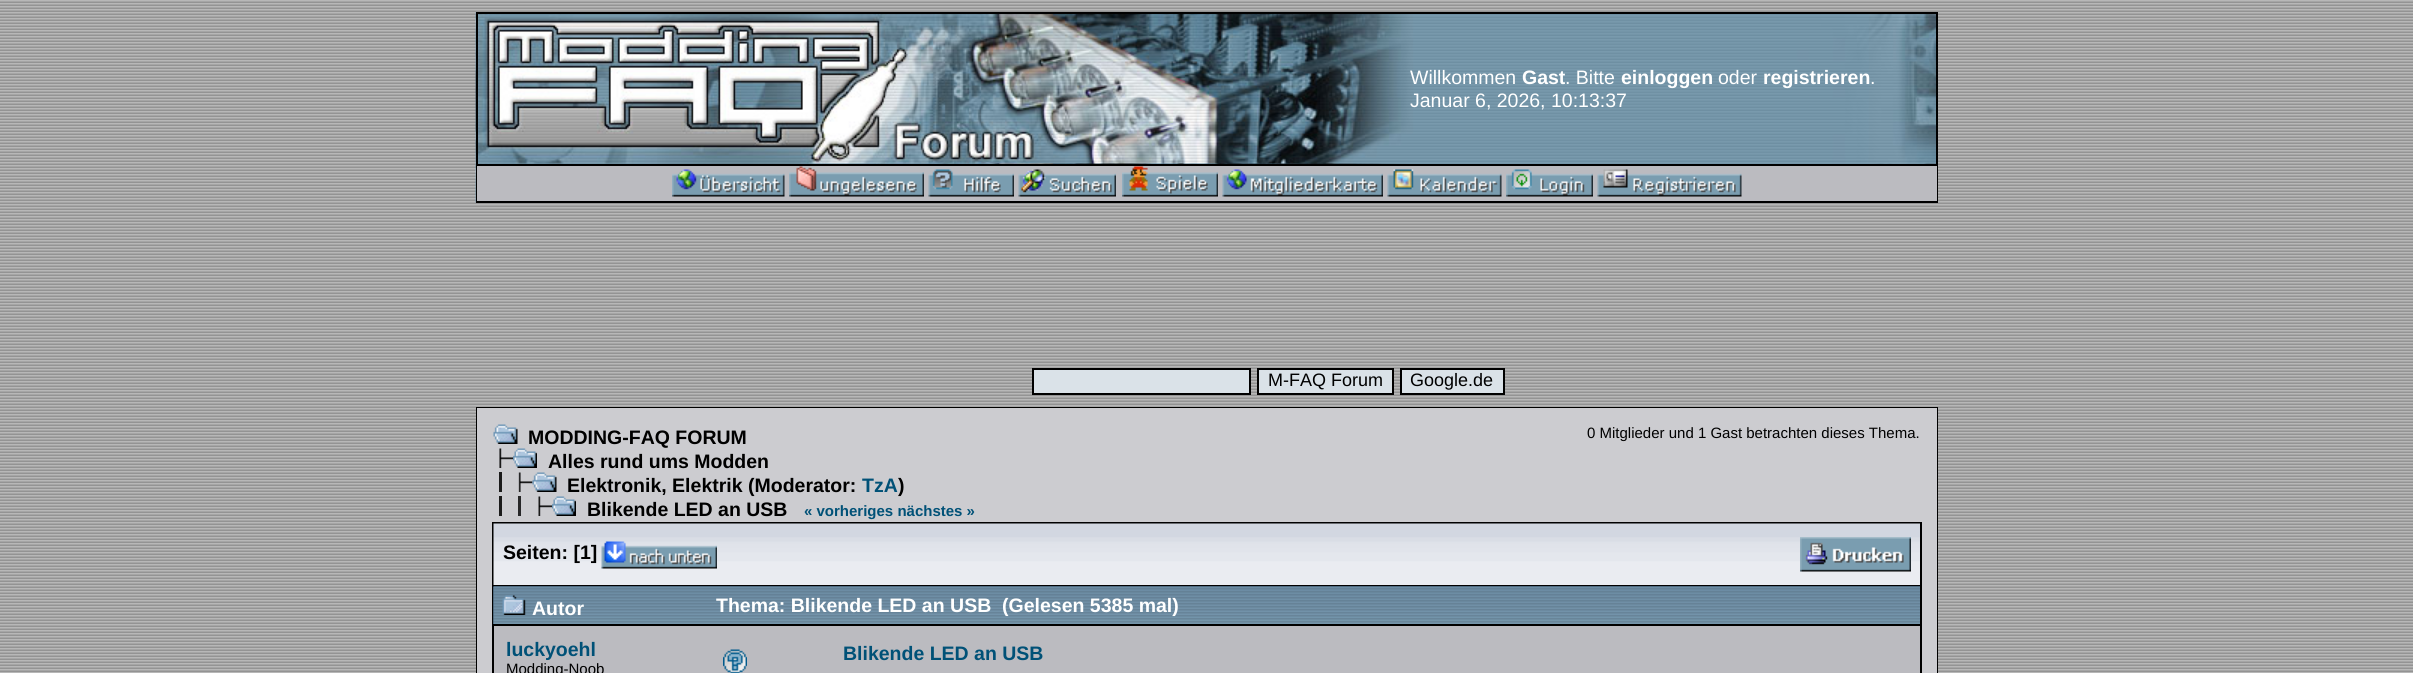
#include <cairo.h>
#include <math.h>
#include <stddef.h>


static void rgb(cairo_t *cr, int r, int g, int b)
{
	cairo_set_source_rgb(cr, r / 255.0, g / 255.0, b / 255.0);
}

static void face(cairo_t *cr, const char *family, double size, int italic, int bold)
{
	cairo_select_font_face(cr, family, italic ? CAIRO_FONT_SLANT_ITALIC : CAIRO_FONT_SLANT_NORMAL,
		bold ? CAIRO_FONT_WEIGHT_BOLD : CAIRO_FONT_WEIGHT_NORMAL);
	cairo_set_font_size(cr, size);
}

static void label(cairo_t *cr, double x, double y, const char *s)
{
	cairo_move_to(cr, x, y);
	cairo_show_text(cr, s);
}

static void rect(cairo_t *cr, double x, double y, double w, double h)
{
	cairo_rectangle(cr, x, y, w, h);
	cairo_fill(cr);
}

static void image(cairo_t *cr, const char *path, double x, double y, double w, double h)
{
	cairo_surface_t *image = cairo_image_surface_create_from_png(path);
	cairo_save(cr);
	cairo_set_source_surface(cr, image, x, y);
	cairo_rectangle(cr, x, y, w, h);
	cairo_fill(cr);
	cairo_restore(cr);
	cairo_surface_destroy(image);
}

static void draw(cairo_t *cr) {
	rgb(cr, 255, 255, 255);
	cairo_paint(cr);
	image(cr, "image0.png", 0, 0, 2413, 673);
	image(cr, "image1.png", 475, 12, 1461, 191);
	cairo_rectangle(cr, 477, 13, 1460, 189);
	rgb(cr, 0, 0, 0);
	cairo_stroke(cr);
	face(cr, "Liberation Sans", 19.5, 0, 0);
	rgb(cr, 255, 255, 255);
	label(cr, 1410, 84, "Willkommen");
	face(cr, "Liberation Sans", 19.5, 0, 1);
	label(cr, 1522, 84, "Gast");
	face(cr, "Liberation Sans", 19.5, 0, 0);
	label(cr, 1565, 84, ". Bitte");
	face(cr, "Liberation Sans", 19.5, 0, 1);
	label(cr, 1621, 84, "einloggen");
	face(cr, "Liberation Sans", 19.5, 0, 0);
	label(cr, 1718, 84, "oder");
	face(cr, "Liberation Sans", 19.5, 0, 1);
	label(cr, 1763, 84, "registrieren");
	face(cr, "Liberation Sans", 19.5, 0, 0);
	label(cr, 1870, 84, ".");
	label(cr, 1410, 107, "Januar 6, 2026, 10:13:37");
	rgb(cr, 187, 187, 192);
	rect(cr, 477, 166, 1460, 35);
	rgb(cr, 0, 0, 0);
	rect(cr, 477, 164, 1460, 2);
	image(cr, "image2.png", 672, 169, 113, 28);
	image(cr, "image3.png", 789, 166, 135, 31);
	image(cr, "image4.png", 928, 169, 86, 28);
	image(cr, "image5.png", 1018, 169, 98, 28);
	image(cr, "image6.png", 1122, 166, 96, 31);
	image(cr, "image7.png", 1222, 169, 161, 28);
	image(cr, "image8.png", 1387, 169, 115, 28);
	image(cr, "image9.png", 1506, 169, 87, 28);
	image(cr, "image10.png", 1597, 169, 145, 28);
	rgb(cr, 218, 226, 232);
	cairo_rectangle(cr, 1033, 369, 217, 25);
	cairo_fill_preserve(cr);
	rgb(cr, 0, 0, 0);
	cairo_stroke(cr);
	rgb(cr, 218, 226, 232);
	cairo_rectangle(cr, 1258, 369, 135, 25);
	cairo_fill_preserve(cr);
	rgb(cr, 0, 0, 0);
	cairo_stroke(cr);
	face(cr, "Liberation Sans", 18, 0, 0);
	label(cr, 1268, 386, "M-FAQ Forum");
	rgb(cr, 218, 226, 232);
	cairo_rectangle(cr, 1401, 369, 103, 25);
	cairo_fill_preserve(cr);
	rgb(cr, 0, 0, 0);
	cairo_stroke(cr);
	label(cr, 1410, 386, "Google.de");
	cairo_rectangle(cr, 477, 408, 1460, 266);
	cairo_stroke(cr);
	rgb(cr, 204, 204, 208);
	rect(cr, 477, 408, 1460, 265);
	image(cr, "image11.png", 493, 424, 25, 20);
	face(cr, "Liberation Sans", 19.5, 0, 1);
	rgb(cr, 0, 0, 0);
	label(cr, 528, 444, "MODDING-FAQ FORUM");
	image(cr, "image12.png", 499, 448, 14, 20);
	image(cr, "image13.png", 513, 448, 24, 20);
	label(cr, 548, 468, "Alles rund ums Modden");
	image(cr, "image14.png", 518, 472, 15, 20);
	image(cr, "image15.png", 532, 472, 25, 20);
	label(cr, 567, 492, "Elektronik, Elektrik (Moderator:");
	rgb(cr, 27, 27, 27);
	rect(cr, 499, 472, 3, 20);
	rgb(cr, 0, 81, 119);
	label(cr, 862, 492, "TzA");
	rgb(cr, 0, 0, 0);
	label(cr, 898, 492, ")");
	image(cr, "image16.png", 538, 496, 14, 20);
	image(cr, "image17.png", 552, 496, 24, 20);
	label(cr, 587, 516, "Blikende LED an USB");
	rgb(cr, 27, 27, 27);
	rect(cr, 499, 496, 3, 20);
	rgb(cr, 39, 39, 40);
	rect(cr, 518, 496, 3, 20);
	face(cr, "Liberation Sans", 15, 0, 1);
	rgb(cr, 0, 81, 119);
	label(cr, 804, 516, "« vorheriges nächstes »");
	face(cr, "Liberation Sans", 15, 0, 0);
	rgb(cr, 0, 0, 0);
	label(cr, 1587, 438, "0 Mitglieder und 1 Gast betrachten dieses Thema.");
	rect(cr, 492, 522, 1430, 2);
	rect(cr, 1920, 522, 2, 63);
	rect(cr, 492, 522, 2, 63);
	image(cr, "image18.png", 493, 523, 1427, 62);
	face(cr, "Liberation Sans", 19.5, 0, 1);
	label(cr, 503, 559, "Seiten: [1]");
	image(cr, "image19.png", 601, 541, 116, 28);
	image(cr, "image20.png", 1800, 537, 111, 35);
	rect(cr, 492, 585, 1430, 2);
	rect(cr, 1920, 585, 2, 39);
	rect(cr, 492, 585, 2, 39);
	image(cr, "image21.png", 493, 586, 215, 38);
	image(cr, "image22.png", 502, 595, 24, 20);
	rgb(cr, 255, 255, 255);
	label(cr, 532, 615, "Autor");
	image(cr, "image23.png", 708, 586, 1212, 38);
	label(cr, 716, 612, "Thema: Blikende LED an USB  (Gelesen 5385 mal)");
	rgb(cr, 0, 0, 0);
	rect(cr, 492, 624, 1430, 49);
	rgb(cr, 187, 187, 192);
	rect(cr, 494, 626, 1426, 47);
	rgb(cr, 0, 81, 119);
	label(cr, 506, 656, "luckyoehl");
	face(cr, "Liberation Sans", 15, 0, 0);
	rgb(cr, 0, 0, 0);
	label(cr, 506, 674, "Modding-Noob");
	image(cr, "image24.png", 723, 649, 24, 24);
	face(cr, "Liberation Sans", 19.5, 0, 1);
	rgb(cr, 0, 81, 119);
	label(cr, 843, 660, "Blikende LED an USB");
}

int main(void) {
	cairo_surface_t *surface = cairo_image_surface_create(CAIRO_FORMAT_RGB24, 2413, 673);
	cairo_t *cr = cairo_create(surface);
	cairo_font_options_t *options = cairo_font_options_create();
	cairo_font_options_set_hint_metrics(options, CAIRO_HINT_METRICS_OFF);
	cairo_font_options_set_hint_style(options, CAIRO_HINT_STYLE_NONE);
	cairo_set_font_options(cr, options);
	cairo_set_miter_limit(cr, 4);
	draw(cr);
	cairo_surface_write_to_png(surface, "render.png");
	cairo_font_options_destroy(options);
	cairo_destroy(cr);
	cairo_surface_destroy(surface);
	return 0;
}
